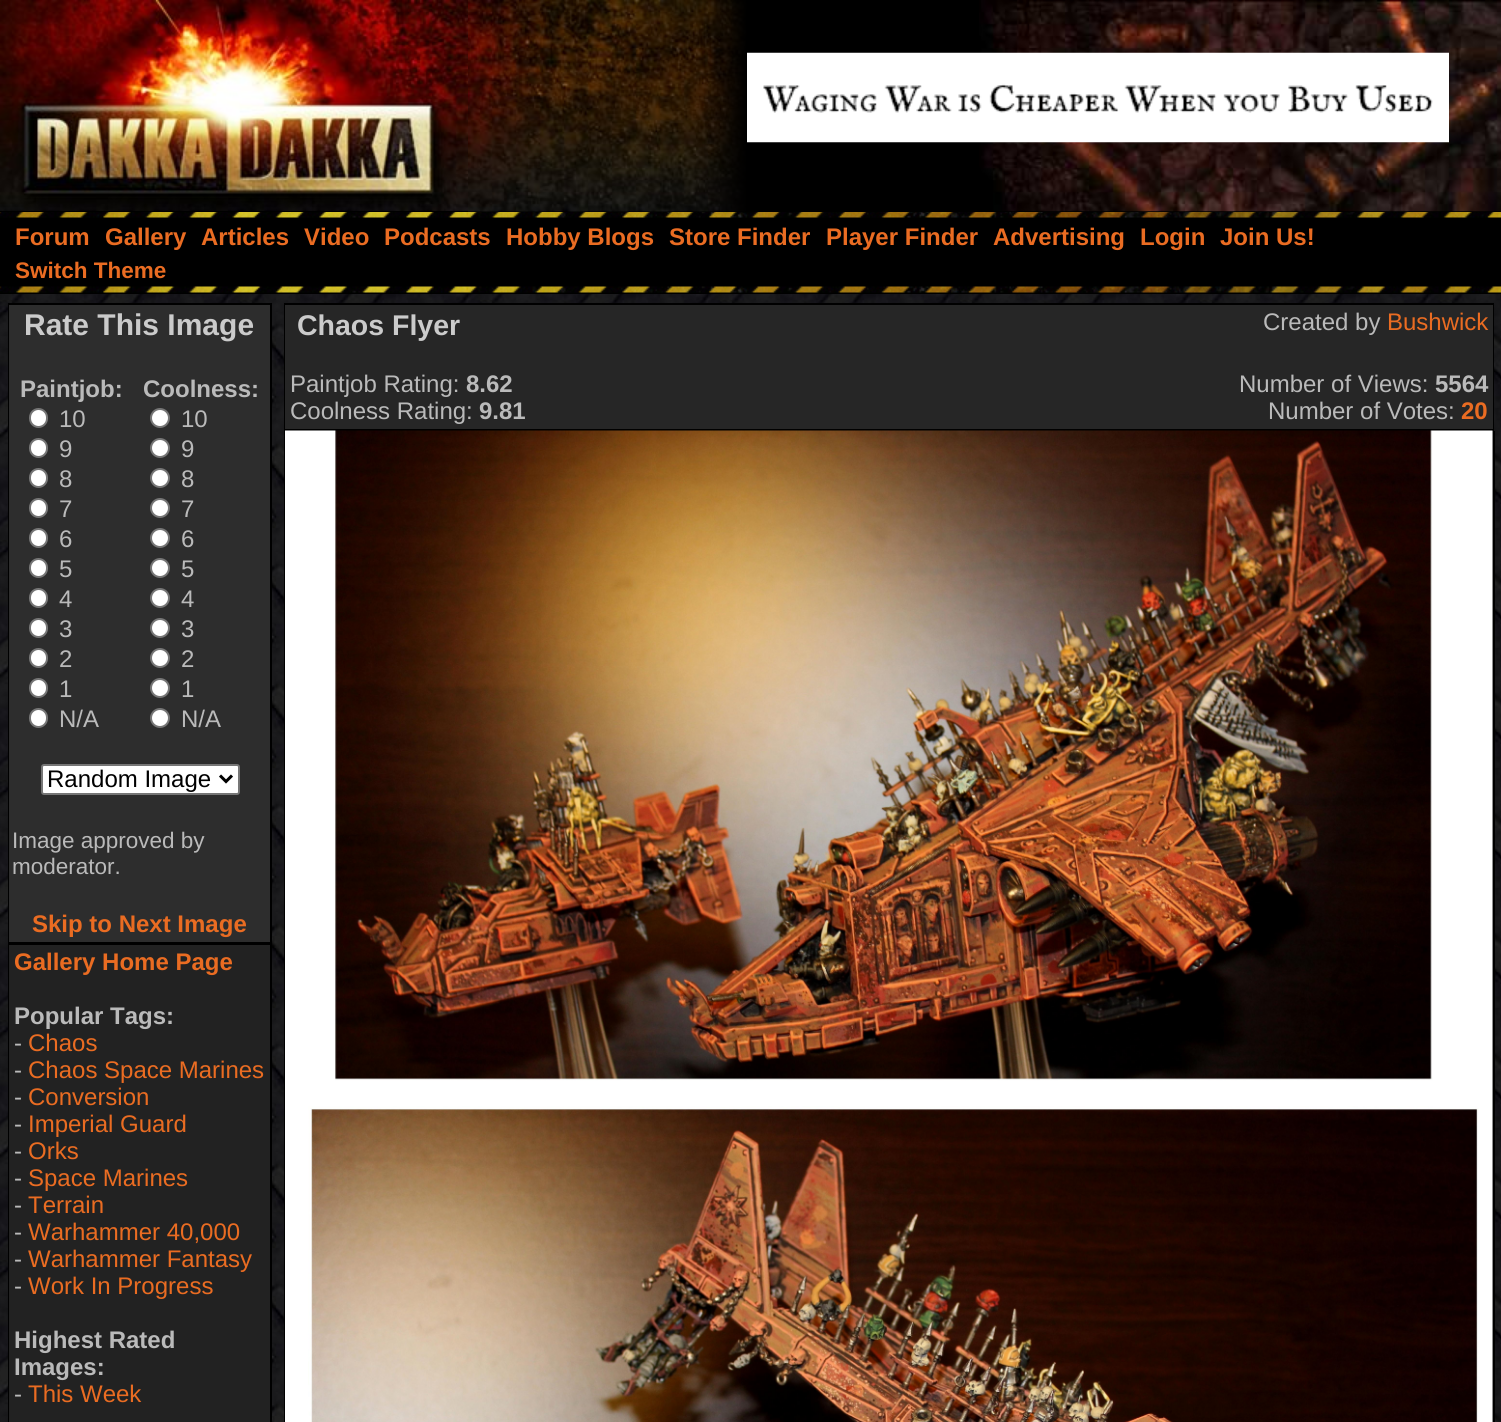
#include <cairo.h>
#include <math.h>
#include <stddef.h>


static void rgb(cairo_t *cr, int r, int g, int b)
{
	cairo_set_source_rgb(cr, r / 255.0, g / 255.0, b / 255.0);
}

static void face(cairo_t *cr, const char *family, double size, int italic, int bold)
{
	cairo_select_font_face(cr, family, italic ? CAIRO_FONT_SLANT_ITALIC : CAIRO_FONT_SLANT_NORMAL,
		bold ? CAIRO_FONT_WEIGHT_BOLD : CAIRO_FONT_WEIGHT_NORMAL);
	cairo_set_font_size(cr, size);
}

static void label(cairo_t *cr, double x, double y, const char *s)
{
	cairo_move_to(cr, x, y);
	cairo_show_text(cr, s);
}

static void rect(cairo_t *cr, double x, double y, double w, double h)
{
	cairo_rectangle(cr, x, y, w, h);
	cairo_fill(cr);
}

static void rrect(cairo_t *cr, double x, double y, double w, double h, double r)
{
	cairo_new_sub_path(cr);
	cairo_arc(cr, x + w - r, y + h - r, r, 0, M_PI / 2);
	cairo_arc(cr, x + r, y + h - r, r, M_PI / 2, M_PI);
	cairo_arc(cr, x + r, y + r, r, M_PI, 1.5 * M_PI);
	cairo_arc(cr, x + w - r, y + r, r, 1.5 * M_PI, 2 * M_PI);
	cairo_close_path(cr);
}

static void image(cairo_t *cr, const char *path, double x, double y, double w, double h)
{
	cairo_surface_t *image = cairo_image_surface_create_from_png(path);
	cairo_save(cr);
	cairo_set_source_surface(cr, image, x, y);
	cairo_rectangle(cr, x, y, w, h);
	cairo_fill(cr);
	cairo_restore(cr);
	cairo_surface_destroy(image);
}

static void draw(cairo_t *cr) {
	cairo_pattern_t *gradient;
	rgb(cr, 255, 255, 255);
	cairo_paint(cr);
	image(cr, "image0.png", 0, 294, 1501, 1128);
	rgb(cr, 0, 0, 0);
	rect(cr, 0, 211, 747, 1);
	image(cr, "image1.png", 468, 0, 279, 212);
	image(cr, "image2.png", 0, 0, 468, 211);
	gradient = cairo_pattern_create_linear(702, 106, 747, 106);
	cairo_pattern_add_color_stop_rgba(gradient, 0, 0, 0, 0, 0);
	cairo_pattern_add_color_stop_rgba(gradient, 1, 0, 0, 0, 1);
	cairo_set_source(cr, gradient);
	cairo_pattern_destroy(gradient);
	rect(cr, 704, 0, 43, 212);
	rgb(cr, 0, 0, 0);
	rect(cr, 747, 0, 754, 212);
	image(cr, "image3.png", 979, 0, 522, 212);
	image(cr, "image4.png", 747, 52, 702, 91);
	rect(cr, 0, 218, 1501, 69);
	image(cr, "image5.png", 0, 212, 1501, 6);
	face(cr, "Liberation Sans", 24, 0, 1);
	rgb(cr, 234, 108, 34);
	label(cr, 15, 245, "Forum");
	label(cr, 105, 245, "Gallery");
	label(cr, 201, 245, "Articles");
	label(cr, 304, 245, "Video");
	label(cr, 384, 245, "Podcasts");
	label(cr, 506, 245, "Hobby Blogs");
	label(cr, 669, 245, "Store Finder");
	label(cr, 826, 245, "Player Finder");
	label(cr, 993, 245, "Advertising");
	label(cr, 1140, 245, "Login");
	label(cr, 1220, 245, "Join Us!");
	face(cr, "Liberation Sans", 22.5, 0, 1);
	label(cr, 15, 278, "Switch Theme");
	rgb(cr, 0, 0, 0);
	rect(cr, 0, 293, 1501, 1);
	image(cr, "image6.png", 0, 286, 1501, 7);
	cairo_rectangle(cr, 9, 304, 262, 639);
	cairo_stroke(cr);
	rgb(cr, 45, 45, 45);
	rect(cr, 9, 305, 261, 637);
	face(cr, "Liberation Sans", 30, 0, 1);
	rgb(cr, 203, 203, 203);
	label(cr, 24, 335, "Rate This Image");
	face(cr, "Liberation Sans", 24, 0, 1);
	rgb(cr, 186, 186, 186);
	label(cr, 20, 397, "Paintjob:");
	rgb(cr, 255, 255, 255);
	rrect(cr, 30, 409, 17, 18, 8.5);
	cairo_fill_preserve(cr);
	rgb(cr, 118, 118, 118);
	cairo_stroke(cr);
	face(cr, "Liberation Sans", 24, 0, 0);
	rgb(cr, 186, 186, 186);
	label(cr, 59, 427, "10");
	rgb(cr, 255, 255, 255);
	rrect(cr, 30, 439, 17, 18, 8.5);
	cairo_fill_preserve(cr);
	rgb(cr, 118, 118, 118);
	cairo_stroke(cr);
	rgb(cr, 186, 186, 186);
	label(cr, 59, 457, "9");
	rgb(cr, 255, 255, 255);
	rrect(cr, 30, 469, 17, 18, 8.5);
	cairo_fill_preserve(cr);
	rgb(cr, 118, 118, 118);
	cairo_stroke(cr);
	rgb(cr, 186, 186, 186);
	label(cr, 59, 487, "8");
	rgb(cr, 255, 255, 255);
	rrect(cr, 30, 499, 17, 18, 8.5);
	cairo_fill_preserve(cr);
	rgb(cr, 118, 118, 118);
	cairo_stroke(cr);
	rgb(cr, 186, 186, 186);
	label(cr, 59, 517, "7");
	rgb(cr, 255, 255, 255);
	rrect(cr, 30, 529, 17, 18, 8.5);
	cairo_fill_preserve(cr);
	rgb(cr, 118, 118, 118);
	cairo_stroke(cr);
	rgb(cr, 186, 186, 186);
	label(cr, 59, 547, "6");
	rgb(cr, 255, 255, 255);
	rrect(cr, 30, 559, 17, 18, 8.5);
	cairo_fill_preserve(cr);
	rgb(cr, 118, 118, 118);
	cairo_stroke(cr);
	rgb(cr, 186, 186, 186);
	label(cr, 59, 577, "5");
	rgb(cr, 255, 255, 255);
	rrect(cr, 30, 589, 17, 18, 8.5);
	cairo_fill_preserve(cr);
	rgb(cr, 118, 118, 118);
	cairo_stroke(cr);
	rgb(cr, 186, 186, 186);
	label(cr, 59, 607, "4");
	rgb(cr, 255, 255, 255);
	rrect(cr, 30, 619, 17, 18, 8.5);
	cairo_fill_preserve(cr);
	rgb(cr, 118, 118, 118);
	cairo_stroke(cr);
	rgb(cr, 186, 186, 186);
	label(cr, 59, 637, "3");
	rgb(cr, 255, 255, 255);
	rrect(cr, 30, 649, 17, 18, 8.5);
	cairo_fill_preserve(cr);
	rgb(cr, 118, 118, 118);
	cairo_stroke(cr);
	rgb(cr, 186, 186, 186);
	label(cr, 59, 667, "2");
	rgb(cr, 255, 255, 255);
	rrect(cr, 30, 679, 17, 18, 8.5);
	cairo_fill_preserve(cr);
	rgb(cr, 118, 118, 118);
	cairo_stroke(cr);
	rgb(cr, 186, 186, 186);
	label(cr, 59, 697, "1");
	rgb(cr, 255, 255, 255);
	rrect(cr, 30, 709, 17, 18, 8.5);
	cairo_fill_preserve(cr);
	rgb(cr, 118, 118, 118);
	cairo_stroke(cr);
	rgb(cr, 186, 186, 186);
	label(cr, 59, 727, "N/A");
	face(cr, "Liberation Sans", 24, 0, 1);
	label(cr, 143, 397, "Coolness:");
	rgb(cr, 255, 255, 255);
	cairo_new_path(cr);
	cairo_arc(cr, 160, 418, 9, 0, 2 * M_PI);
	cairo_fill_preserve(cr);
	rgb(cr, 118, 118, 118);
	cairo_stroke(cr);
	face(cr, "Liberation Sans", 24, 0, 0);
	rgb(cr, 186, 186, 186);
	label(cr, 181, 427, "10");
	rgb(cr, 255, 255, 255);
	cairo_new_path(cr);
	cairo_arc(cr, 160, 448, 9, 0, 2 * M_PI);
	cairo_fill_preserve(cr);
	rgb(cr, 118, 118, 118);
	cairo_stroke(cr);
	rgb(cr, 186, 186, 186);
	label(cr, 181, 457, "9");
	rgb(cr, 255, 255, 255);
	cairo_new_path(cr);
	cairo_arc(cr, 160, 478, 9, 0, 2 * M_PI);
	cairo_fill_preserve(cr);
	rgb(cr, 118, 118, 118);
	cairo_stroke(cr);
	rgb(cr, 186, 186, 186);
	label(cr, 181, 487, "8");
	rgb(cr, 255, 255, 255);
	cairo_new_path(cr);
	cairo_arc(cr, 160, 508, 9, 0, 2 * M_PI);
	cairo_fill_preserve(cr);
	rgb(cr, 118, 118, 118);
	cairo_stroke(cr);
	rgb(cr, 186, 186, 186);
	label(cr, 181, 517, "7");
	rgb(cr, 255, 255, 255);
	cairo_new_path(cr);
	cairo_arc(cr, 160, 538, 9, 0, 2 * M_PI);
	cairo_fill_preserve(cr);
	rgb(cr, 118, 118, 118);
	cairo_stroke(cr);
	rgb(cr, 186, 186, 186);
	label(cr, 181, 547, "6");
	rgb(cr, 255, 255, 255);
	cairo_new_path(cr);
	cairo_arc(cr, 160, 568, 9, 0, 2 * M_PI);
	cairo_fill_preserve(cr);
	rgb(cr, 118, 118, 118);
	cairo_stroke(cr);
	rgb(cr, 186, 186, 186);
	label(cr, 181, 577, "5");
	rgb(cr, 255, 255, 255);
	cairo_new_path(cr);
	cairo_arc(cr, 160, 598, 9, 0, 2 * M_PI);
	cairo_fill_preserve(cr);
	rgb(cr, 118, 118, 118);
	cairo_stroke(cr);
	rgb(cr, 186, 186, 186);
	label(cr, 181, 607, "4");
	rgb(cr, 255, 255, 255);
	cairo_new_path(cr);
	cairo_arc(cr, 160, 628, 9, 0, 2 * M_PI);
	cairo_fill_preserve(cr);
	rgb(cr, 118, 118, 118);
	cairo_stroke(cr);
	rgb(cr, 186, 186, 186);
	label(cr, 181, 637, "3");
	rgb(cr, 255, 255, 255);
	cairo_new_path(cr);
	cairo_arc(cr, 160, 658, 9, 0, 2 * M_PI);
	cairo_fill_preserve(cr);
	rgb(cr, 118, 118, 118);
	cairo_stroke(cr);
	rgb(cr, 186, 186, 186);
	label(cr, 181, 667, "2");
	rgb(cr, 255, 255, 255);
	cairo_new_path(cr);
	cairo_arc(cr, 160, 688, 9, 0, 2 * M_PI);
	cairo_fill_preserve(cr);
	rgb(cr, 118, 118, 118);
	cairo_stroke(cr);
	rgb(cr, 186, 186, 186);
	label(cr, 181, 697, "1");
	rgb(cr, 255, 255, 255);
	cairo_new_path(cr);
	cairo_arc(cr, 160, 718, 9, 0, 2 * M_PI);
	cairo_fill_preserve(cr);
	rgb(cr, 118, 118, 118);
	cairo_stroke(cr);
	rgb(cr, 186, 186, 186);
	label(cr, 181, 727, "N/A");
	rgb(cr, 255, 255, 255);
	rrect(cr, 42, 765, 197, 29, 2);
	cairo_fill_preserve(cr);
	rgb(cr, 118, 118, 118);
	cairo_stroke(cr);
	cairo_new_path(cr);
	cairo_move_to(cr, 220, 775.5);
	cairo_line_to(cr, 226, 781.5);
	cairo_line_to(cr, 232, 775.5);
	rgb(cr, 0, 0, 0);
	cairo_set_line_width(cr, 3);
	cairo_stroke(cr);
	label(cr, 47, 787, "Random Image");
	face(cr, "Liberation Sans", 22.5, 0, 0);
	rgb(cr, 186, 186, 186);
	label(cr, 12, 848, "Image approved by");
	label(cr, 12, 874, "moderator.");
	face(cr, "Liberation Sans", 24, 0, 1);
	rgb(cr, 234, 108, 34);
	label(cr, 32, 932, "Skip to Next Image");
	cairo_rectangle(cr, 9, 945, 262, 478);
	rgb(cr, 0, 0, 0);
	cairo_set_line_width(cr, 2);
	cairo_stroke(cr);
	rgb(cr, 34, 34, 34);
	rect(cr, 9, 945, 261, 477);
	rgb(cr, 234, 108, 34);
	label(cr, 14, 970, "Gallery Home Page");
	rgb(cr, 186, 186, 186);
	label(cr, 14, 1024, "Popular Tags:");
	face(cr, "Liberation Sans", 24, 0, 0);
	label(cr, 14, 1051, "-");
	rgb(cr, 234, 108, 34);
	label(cr, 28, 1051, "Chaos");
	rgb(cr, 186, 186, 186);
	label(cr, 14, 1078, "-");
	rgb(cr, 234, 108, 34);
	label(cr, 28, 1078, "Chaos Space Marines");
	rgb(cr, 186, 186, 186);
	label(cr, 14, 1105, "-");
	rgb(cr, 234, 108, 34);
	label(cr, 28, 1105, "Conversion");
	rgb(cr, 186, 186, 186);
	label(cr, 14, 1132, "-");
	rgb(cr, 234, 108, 34);
	label(cr, 28, 1132, "Imperial Guard");
	rgb(cr, 186, 186, 186);
	label(cr, 14, 1159, "-");
	rgb(cr, 234, 108, 34);
	label(cr, 28, 1159, "Orks");
	rgb(cr, 186, 186, 186);
	label(cr, 14, 1186, "-");
	rgb(cr, 234, 108, 34);
	label(cr, 28, 1186, "Space Marines");
	rgb(cr, 186, 186, 186);
	label(cr, 14, 1213, "-");
	rgb(cr, 234, 108, 34);
	label(cr, 28, 1213, "Terrain");
	rgb(cr, 186, 186, 186);
	label(cr, 14, 1240, "-");
	rgb(cr, 234, 108, 34);
	label(cr, 28, 1240, "Warhammer 40,000");
	rgb(cr, 186, 186, 186);
	label(cr, 14, 1267, "-");
	rgb(cr, 234, 108, 34);
	label(cr, 28, 1267, "Warhammer Fantasy");
	rgb(cr, 186, 186, 186);
	label(cr, 14, 1294, "-");
	rgb(cr, 234, 108, 34);
	label(cr, 28, 1294, "Work In Progress");
	face(cr, "Liberation Sans", 24, 0, 1);
	rgb(cr, 186, 186, 186);
	label(cr, 14, 1348, "Highest Rated");
	label(cr, 14, 1375, "Images:");
	face(cr, "Liberation Sans", 24, 0, 0);
	label(cr, 14, 1402, "-");
	rgb(cr, 234, 108, 34);
	label(cr, 28, 1402, "This Week");
	cairo_rectangle(cr, 285, 304, 1208, 126);
	rgb(cr, 0, 0, 0);
	cairo_stroke(cr);
	rgb(cr, 38, 38, 38);
	rect(cr, 285, 305, 1208, 124);
	face(cr, "Liberation Sans", 28.5, 0, 1);
	rgb(cr, 203, 203, 203);
	label(cr, 297, 335, "Chaos Flyer");
	face(cr, "Liberation Sans", 24, 0, 0);
	rgb(cr, 186, 186, 186);
	label(cr, 1263, 330, "Created by");
	rgb(cr, 234, 108, 34);
	label(cr, 1387, 330, "Bushwick");
	rgb(cr, 186, 186, 186);
	label(cr, 290, 392, "Paintjob Rating:");
	face(cr, "Liberation Sans", 24, 0, 1);
	label(cr, 466, 392, "8.62");
	face(cr, "Liberation Sans", 24, 0, 0);
	label(cr, 1239, 392, "Number of Views:");
	face(cr, "Liberation Sans", 24, 0, 1);
	label(cr, 1435, 392, "5564");
	face(cr, "Liberation Sans", 24, 0, 0);
	label(cr, 290, 419, "Coolness Rating:");
	face(cr, "Liberation Sans", 24, 0, 1);
	label(cr, 479, 419, "9.81");
	face(cr, "Liberation Sans", 24, 0, 0);
	label(cr, 1268, 419, "Number of Votes:");
	face(cr, "Liberation Sans", 24, 0, 1);
	rgb(cr, 234, 108, 34);
	label(cr, 1461, 419, "20");
	rgb(cr, 0, 0, 0);
	rect(cr, 1493, 431, 2, 991);
	rect(cr, 284, 431, 1, 991);
	rgb(cr, 34, 34, 34);
	rect(cr, 1492, 431, 1, 991);
	image(cr, "image7.png", 285, 430, 1208, 992);
}

int main(void) {
	cairo_surface_t *surface = cairo_image_surface_create(CAIRO_FORMAT_RGB24, 1501, 1422);
	cairo_t *cr = cairo_create(surface);
	cairo_font_options_t *options = cairo_font_options_create();
	cairo_font_options_set_hint_metrics(options, CAIRO_HINT_METRICS_OFF);
	cairo_font_options_set_hint_style(options, CAIRO_HINT_STYLE_NONE);
	cairo_set_font_options(cr, options);
	cairo_set_miter_limit(cr, 4);
	draw(cr);
	cairo_surface_write_to_png(surface, "render.png");
	cairo_font_options_destroy(options);
	cairo_destroy(cr);
	cairo_surface_destroy(surface);
	return 0;
}
